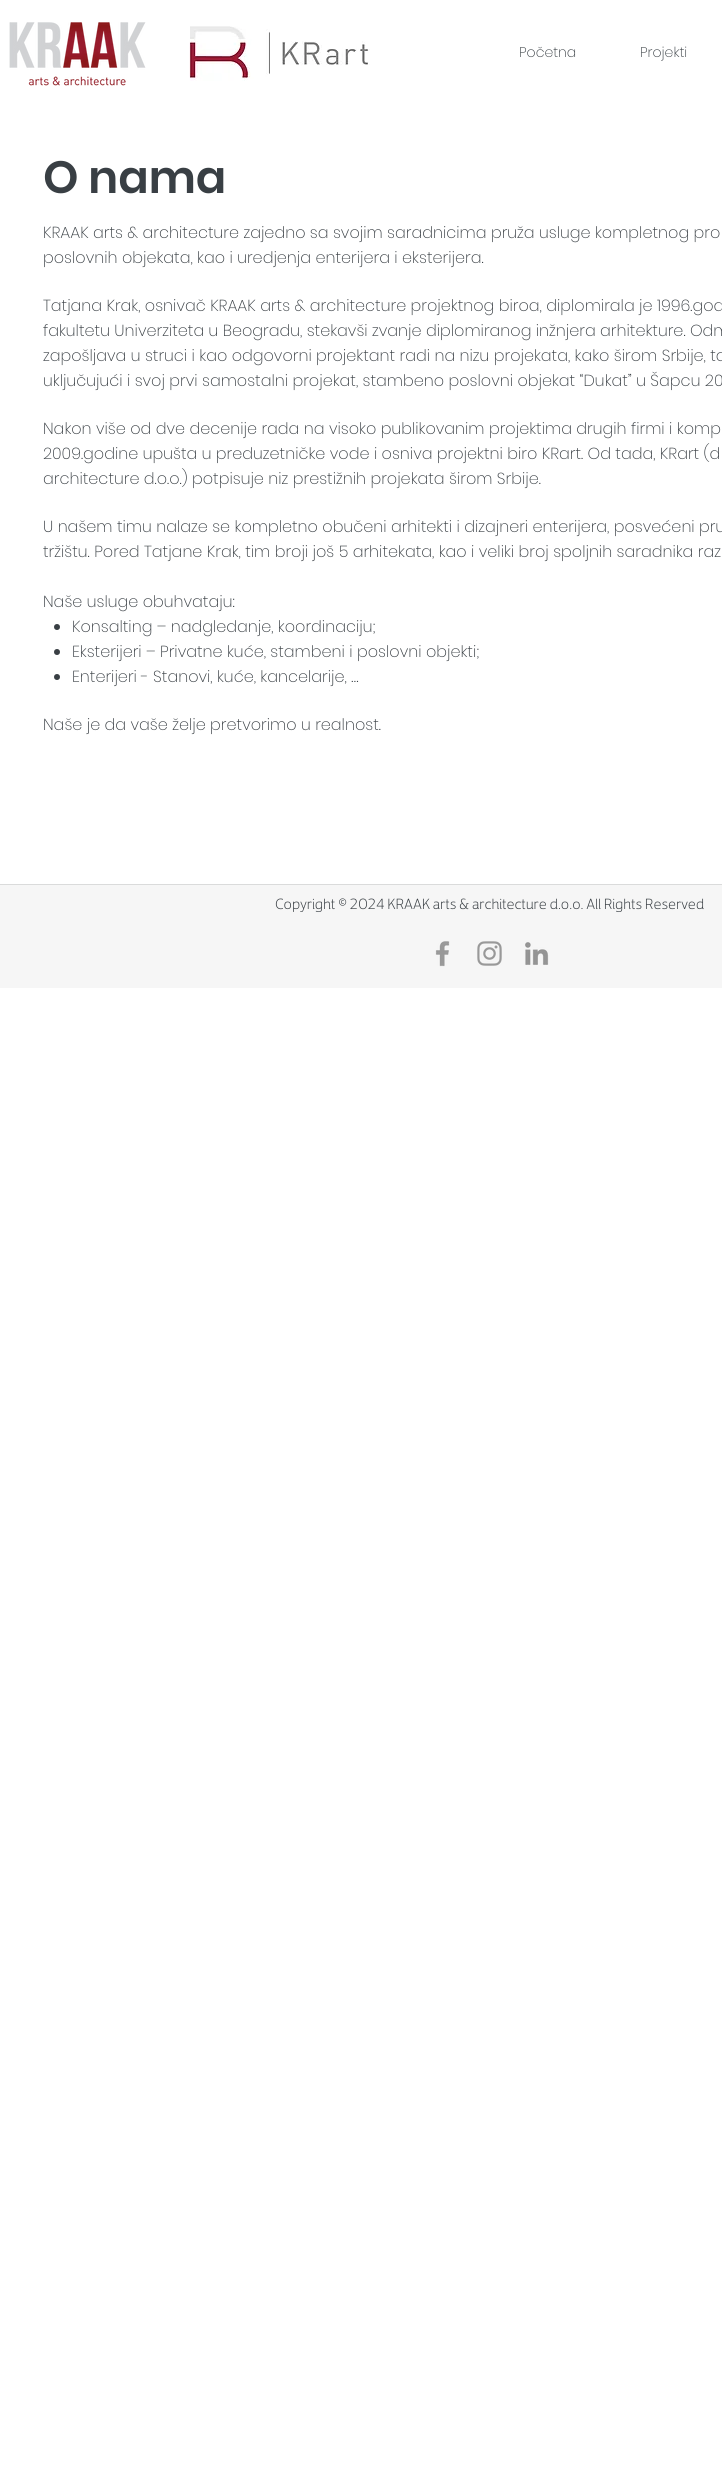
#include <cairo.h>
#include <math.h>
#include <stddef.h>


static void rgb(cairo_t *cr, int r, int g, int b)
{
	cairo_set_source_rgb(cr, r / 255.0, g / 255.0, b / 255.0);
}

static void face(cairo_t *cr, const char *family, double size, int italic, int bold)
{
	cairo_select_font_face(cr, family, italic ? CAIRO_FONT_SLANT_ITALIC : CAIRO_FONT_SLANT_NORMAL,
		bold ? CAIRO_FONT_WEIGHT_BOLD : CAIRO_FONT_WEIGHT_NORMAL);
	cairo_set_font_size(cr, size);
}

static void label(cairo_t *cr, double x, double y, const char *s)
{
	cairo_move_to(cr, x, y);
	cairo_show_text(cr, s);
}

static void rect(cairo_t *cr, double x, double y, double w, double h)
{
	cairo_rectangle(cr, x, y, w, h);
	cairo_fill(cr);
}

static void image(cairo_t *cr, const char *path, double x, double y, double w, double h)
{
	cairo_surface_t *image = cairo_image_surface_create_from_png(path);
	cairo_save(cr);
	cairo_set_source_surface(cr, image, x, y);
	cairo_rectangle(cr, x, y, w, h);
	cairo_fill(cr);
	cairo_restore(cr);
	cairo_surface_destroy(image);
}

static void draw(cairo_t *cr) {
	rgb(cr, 255, 255, 255);
	cairo_paint(cr);
	image(cr, "image0.png", 9, 22, 137, 64);
	image(cr, "image1.png", 189, 26, 181, 55);
	face(cr, "Poppins ExtraLight", 14, 0, 0);
	rgb(cr, 57, 63, 68);
	label(cr, 519, 57, "Početna");
	label(cr, 640, 57, "Projekti");
	face(cr, "Poppins SemiBold", 45, 0, 0);
	label(cr, 43, 193, "O nama");
	face(cr, "Poppins ExtraLight", 16, 0, 0);
	label(cr, 43, 238, "KRAAK arts & architecture zajedno sa svojim saradnicima pruža usluge kompletnog pro");
	label(cr, 43, 263, "poslovnih objekata, kao i uredjenja enterijera i eksterijera.");
	label(cr, 43, 311, "Tatjana Krak, osnivač KRAAK arts & architecture projektnog biroa, diplomirala je 1996.god");
	label(cr, 43, 336, "fakultetu Univerziteta u Beogradu, stekavši zvanje diplomiranog inžnjera arhitekture. Odm");
	label(cr, 43, 361, "zapošljava u struci i kao odgovorni projektant radi na nizu projekata, kako širom Srbije, ta");
	label(cr, 43, 386, "uključujući i svoj prvi samostalni projekat, stambeno poslovni objekat “Dukat” u Šapcu 20");
	label(cr, 43, 434, "Nakon više od dve decenije rada na visoko publikovanim projektima drugih firmi i komp");
	label(cr, 43, 459, "2009.godine upušta u preduzetničke vode i osniva projektni biro KRart. Od tada, KRart (d");
	label(cr, 43, 484, "architecture d.o.o.) potpisuje niz prestižnih projekata širom Srbije.");
	label(cr, 43, 532, "U našem timu nalaze se kompletno obučeni arhitekti i dizajneri enterijera, posvećeni pru");
	label(cr, 43, 557, "tržištu. Pored Tatjane Krak, tim broji još 5 arhitekata, kao i veliki broj spoljnih saradnika raz");
	label(cr, 43, 607, "Naše usluge obuhvataju:");
	cairo_new_path(cr);
	cairo_arc(cr, 57, 627, 3, 0, 2 * M_PI);
	cairo_fill(cr);
	label(cr, 72, 632, "Konsalting – nadgledanje, koordinaciju;");
	cairo_new_path(cr);
	cairo_arc(cr, 57, 652, 3, 0, 2 * M_PI);
	cairo_fill(cr);
	label(cr, 72, 657, "Eksterijeri – Privatne kuće, stambeni i poslovni objekti;");
	cairo_new_path(cr);
	cairo_arc(cr, 57, 677, 3, 0, 2 * M_PI);
	cairo_fill(cr);
	label(cr, 72, 682, "Enterijeri - Stanovi, kuće, kancelarije, …");
	label(cr, 43, 730, "Naše je da vaše želje pretvorimo u realnost.");
	rgb(cr, 246, 246, 246);
	rect(cr, 0, 885, 722, 103);
	rgb(cr, 218, 219, 219);
	rect(cr, 0, 884, 722, 1);
	face(cr, "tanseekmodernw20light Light", 22, 0, 0);
	rgb(cr, 57, 63, 68);
	label(cr, 275, 909, "Copyright © 2024 KRAAK arts & architecture d.o.o. All Rights Reserved");
	image(cr, "image2.png", 435, 941, 15, 26);
	image(cr, "image3.png", 477, 941, 25, 25);
	image(cr, "image4.png", 525, 942, 24, 23);
}

int main(void) {
	cairo_surface_t *surface = cairo_image_surface_create(CAIRO_FORMAT_RGB24, 722, 2483);
	cairo_t *cr = cairo_create(surface);
	cairo_font_options_t *options = cairo_font_options_create();
	cairo_font_options_set_hint_metrics(options, CAIRO_HINT_METRICS_OFF);
	cairo_font_options_set_hint_style(options, CAIRO_HINT_STYLE_NONE);
	cairo_set_font_options(cr, options);
	cairo_set_miter_limit(cr, 4);
	draw(cr);
	cairo_surface_write_to_png(surface, "render.png");
	cairo_font_options_destroy(options);
	cairo_destroy(cr);
	cairo_surface_destroy(surface);
	return 0;
}
